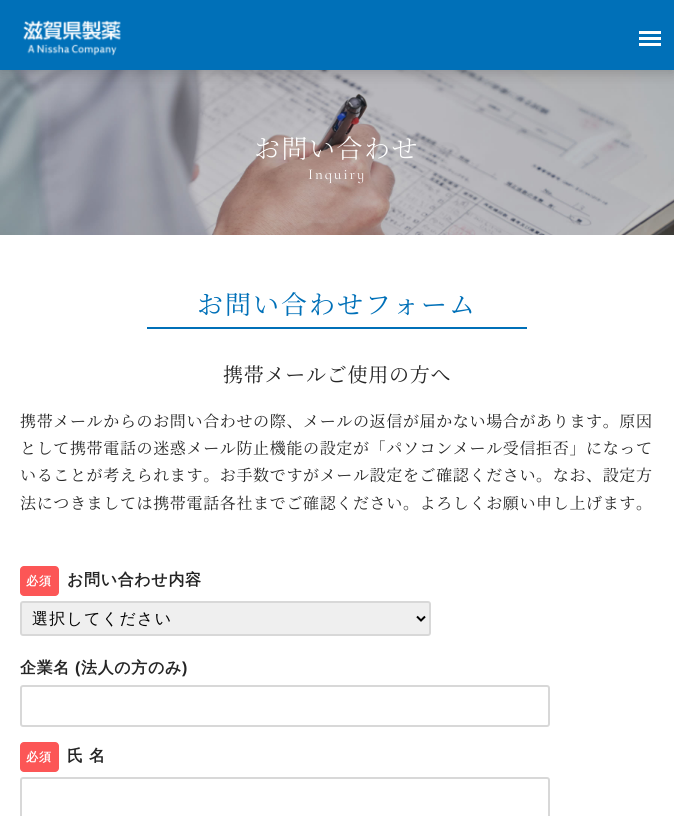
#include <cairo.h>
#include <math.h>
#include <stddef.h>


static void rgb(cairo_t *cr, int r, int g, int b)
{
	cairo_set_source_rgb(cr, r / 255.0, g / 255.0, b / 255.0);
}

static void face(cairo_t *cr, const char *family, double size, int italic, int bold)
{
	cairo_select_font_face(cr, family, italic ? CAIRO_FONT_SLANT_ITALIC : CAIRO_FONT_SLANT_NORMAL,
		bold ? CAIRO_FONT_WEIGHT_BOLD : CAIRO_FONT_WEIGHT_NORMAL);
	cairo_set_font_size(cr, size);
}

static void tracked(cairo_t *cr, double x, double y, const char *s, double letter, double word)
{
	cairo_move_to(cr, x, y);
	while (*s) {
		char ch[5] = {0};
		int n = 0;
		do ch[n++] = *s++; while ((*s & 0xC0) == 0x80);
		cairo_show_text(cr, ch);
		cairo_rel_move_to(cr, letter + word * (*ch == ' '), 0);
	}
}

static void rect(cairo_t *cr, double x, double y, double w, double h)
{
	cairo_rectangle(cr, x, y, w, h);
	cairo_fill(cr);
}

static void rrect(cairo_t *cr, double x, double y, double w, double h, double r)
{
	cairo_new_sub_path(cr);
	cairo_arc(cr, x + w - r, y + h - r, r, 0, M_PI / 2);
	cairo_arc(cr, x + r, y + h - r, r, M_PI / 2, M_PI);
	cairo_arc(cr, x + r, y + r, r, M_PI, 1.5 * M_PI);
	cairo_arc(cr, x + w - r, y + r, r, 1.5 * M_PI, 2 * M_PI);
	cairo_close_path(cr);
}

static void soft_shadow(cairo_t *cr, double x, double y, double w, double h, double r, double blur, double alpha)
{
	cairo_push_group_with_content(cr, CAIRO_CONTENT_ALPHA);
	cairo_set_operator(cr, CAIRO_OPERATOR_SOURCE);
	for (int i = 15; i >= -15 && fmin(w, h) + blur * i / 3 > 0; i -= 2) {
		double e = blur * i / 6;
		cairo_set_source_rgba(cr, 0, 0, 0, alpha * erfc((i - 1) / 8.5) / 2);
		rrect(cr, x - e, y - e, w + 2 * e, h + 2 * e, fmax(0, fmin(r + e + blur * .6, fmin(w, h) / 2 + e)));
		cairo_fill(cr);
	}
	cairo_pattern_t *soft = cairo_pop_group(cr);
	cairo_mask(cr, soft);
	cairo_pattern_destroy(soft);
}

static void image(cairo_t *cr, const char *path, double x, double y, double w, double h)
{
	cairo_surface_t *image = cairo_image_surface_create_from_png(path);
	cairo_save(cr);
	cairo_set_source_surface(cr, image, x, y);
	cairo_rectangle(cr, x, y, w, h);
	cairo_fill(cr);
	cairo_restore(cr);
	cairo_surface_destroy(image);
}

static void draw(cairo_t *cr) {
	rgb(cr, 255, 255, 255);
	cairo_paint(cr);
	image(cr, "image1.png", 0, 70, 674, 165);
	rgb(cr, 0, 0, 0);
	soft_shadow(cr, 0, 3, 674, 70, 0, 7.5, 0.2);
	rgb(cr, 0, 112, 184);
	rect(cr, 0, 0, 674, 70);
	image(cr, "image0.png", 23, 20, 98, 36);
	rgb(cr, 255, 255, 255);
	rect(cr, 639, 31, 22, 3);
	rect(cr, 639, 37, 22, 3);
	rect(cr, 639, 43, 22, 3);
	face(cr, "Noto Serif JP Light", 26, 0, 0);
	tracked(cr, 254, 158, "お問い合わせ", 1.5, 0);
	face(cr, "Cormorant Infant", 15, 0, 0);
	tracked(cr, 308, 179, "Inquiry", 2, 0);
	face(cr, "Noto Serif JP", 26, 0, 0);
	rgb(cr, 0, 112, 184);
	tracked(cr, 197, 314, "お問い合わせフォーム", 2, 0);
	rect(cr, 147, 327, 380, 2);
	face(cr, "Noto Serif JP", 20, 0, 0);
	rgb(cr, 37, 37, 37);
	tracked(cr, 223, 382, "携帯メールご使用の方へ", 0.75, 0);
	face(cr, "Noto Serif JP", 16, 0, 0);
	tracked(cr, 20, 427, "携帯メールからのお問い合わせの際、メールの返信が届かない場合があります。原因", 0.65, 0);
	tracked(cr, 20, 454, "として携帯電話の迷惑メール防止機能の設定が「パソコンメール受信拒否」になって", 0.65, 0);
	tracked(cr, 20, 481, "いることが考えられます。お手数ですがメール設定をご確認ください。なお、設定方", 0.65, 0);
	tracked(cr, 20, 509, "法につきましては携帯電話各社までご確認ください。よろしくお願い申し上げます。", 0.65, 0);
	rgb(cr, 252, 86, 86);
	rrect(cr, 20, 566, 39, 30, 4);
	cairo_fill(cr);
	face(cr, "WenQuanYi Zen Hei", 12, 0, 1);
	rgb(cr, 255, 255, 255);
	tracked(cr, 26, 585, "必須", 1, 0);
	face(cr, "WenQuanYi Zen Hei", 16, 0, 1);
	rgb(cr, 37, 37, 37);
	tracked(cr, 67, 585, "お問い合わせ内容", 0.65, 0);
	rgb(cr, 239, 239, 239);
	rrect(cr, 21, 602, 409, 33, 2);
	cairo_fill_preserve(cr);
	rgb(cr, 216, 216, 216);
	cairo_stroke(cr);
	cairo_new_path(cr);
	cairo_move_to(cr, 417, 616.5);
	cairo_line_to(cr, 421, 620.5);
	cairo_line_to(cr, 425, 616.5);
	rgb(cr, 0, 0, 0);
	cairo_stroke(cr);
	face(cr, "WenQuanYi Zen Hei Medium", 16, 0, 0);
	tracked(cr, 32, 624, "選択してください", 1.25, 0);
	face(cr, "WenQuanYi Zen Hei", 16, 0, 1);
	rgb(cr, 37, 37, 37);
	tracked(cr, 20, 673, "企業名", 0.65, 0);
	face(cr, "Liberation Sans", 16, 0, 1);
	tracked(cr, 75, 673, "(", 0.65, 0);
	face(cr, "WenQuanYi Zen Hei", 16, 0, 1);
	tracked(cr, 81, 673, "法人の方のみ", 0.65, 0);
	face(cr, "Liberation Sans", 16, 0, 1);
	tracked(cr, 182, 673, ")", 0.65, 0);
	rrect(cr, 21, 686, 528, 40, 2);
	rgb(cr, 216, 216, 216);
	cairo_stroke(cr);
	rgb(cr, 252, 86, 86);
	rrect(cr, 20, 742, 39, 30, 4);
	cairo_fill(cr);
	face(cr, "WenQuanYi Zen Hei", 12, 0, 1);
	rgb(cr, 255, 255, 255);
	tracked(cr, 26, 761, "必須", 1, 0);
	face(cr, "WenQuanYi Zen Hei", 16, 0, 1);
	rgb(cr, 37, 37, 37);
	tracked(cr, 67, 761, "氏 名", 0.65, 0);
	rrect(cr, 21, 778, 528, 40, 2);
	rgb(cr, 216, 216, 216);
	cairo_stroke(cr);
}

int main(void) {
	cairo_surface_t *surface = cairo_image_surface_create(CAIRO_FORMAT_RGB24, 674, 816);
	cairo_t *cr = cairo_create(surface);
	cairo_font_options_t *options = cairo_font_options_create();
	cairo_font_options_set_hint_metrics(options, CAIRO_HINT_METRICS_OFF);
	cairo_font_options_set_hint_style(options, CAIRO_HINT_STYLE_NONE);
	cairo_set_font_options(cr, options);
	cairo_set_miter_limit(cr, 4);
	draw(cr);
	cairo_surface_write_to_png(surface, "render.png");
	cairo_font_options_destroy(options);
	cairo_destroy(cr);
	cairo_surface_destroy(surface);
	return 0;
}
